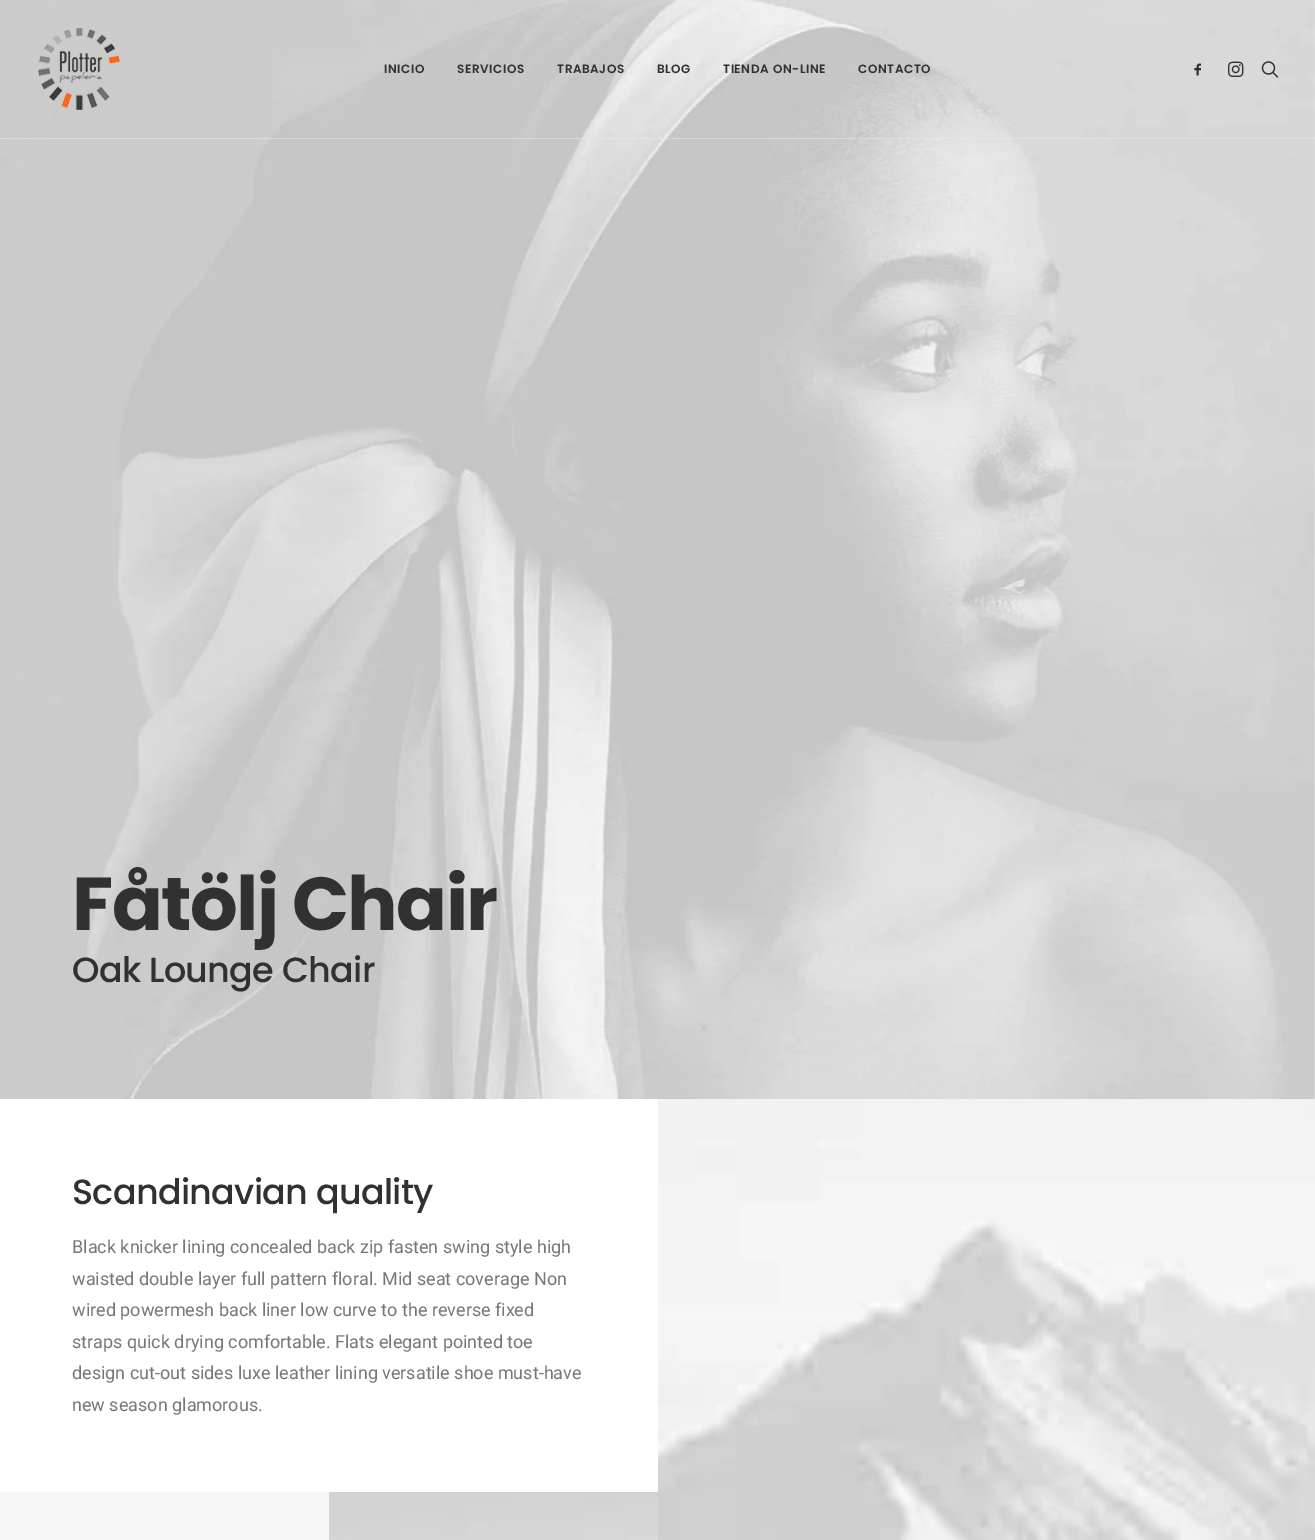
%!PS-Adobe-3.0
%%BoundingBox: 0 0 1315 1540
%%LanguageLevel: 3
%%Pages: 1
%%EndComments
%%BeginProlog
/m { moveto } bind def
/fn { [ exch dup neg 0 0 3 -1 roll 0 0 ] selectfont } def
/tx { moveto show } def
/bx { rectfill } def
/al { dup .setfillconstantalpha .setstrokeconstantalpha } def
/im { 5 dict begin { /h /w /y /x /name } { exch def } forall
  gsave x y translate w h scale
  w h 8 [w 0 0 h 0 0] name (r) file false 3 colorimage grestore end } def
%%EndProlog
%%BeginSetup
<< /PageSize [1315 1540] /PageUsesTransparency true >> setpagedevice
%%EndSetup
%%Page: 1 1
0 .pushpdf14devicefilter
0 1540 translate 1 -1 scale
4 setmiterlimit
1 setgray
0 0 1315 1540 bx
(image4.raw) 0 0 1315 1099 im
0.5 al
0.918 setgray
0 138 1315 1 bx
1 al
(image0.raw) 38 28 82 82 im
/Poppins-SemiBold 12 fn
0.188 0.192 0.2 setrgbcolor
384 73 m 0.6 0 (INICIO) ashow
457 73 m 0.6 0 (SERVICIOS) ashow
557 73 m 0.6 0 (TRABAJOS) ashow
657 73 m 0.6 0 (BLOG) ashow
723 73 m 0.6 0 (TIENDA ON-LINE) ashow
858 73 m 0.6 0 (CONTACTO) ashow
(image1.raw) 1194 63 7 13 im
(image2.raw) 1228 61 16 16 im
(image3.raw) 1261 61 18 17 im
/Poppins-Bold 75 fn
72 930 m -1.5 0 (Fåtölj Chair) ashow
/Poppins-Medium 35 fn
72 982 m -0.7 0 (Oak Lounge Chair) ashow
72 1204 m -0.7 0 (Scandinavian quality) ashow
/Roboto-Regular 18 fn
0.467 setgray
(Black knicker lining concealed back zip fasten swing style high) 72 1253 tx
(waisted double layer full pattern floral. Mid seat coverage Non) 72 1285 tx
(wired powermesh back liner low curve to the reverse fixed) 72 1316 tx
(straps quick drying comfortable. Flats elegant pointed toe) 72 1348 tx
(design cut-out sides luxe leather lining versatile shoe must-have) 72 1379 tx
(new season glamorous.) 72 1411 tx
0.969 setgray
0 1492 329 48 bx
(image5.raw) 329 1492 329 48 im
(image6.raw) 658 1099 657 441 im
.poppdf14devicefilter showpage
%%EOF
